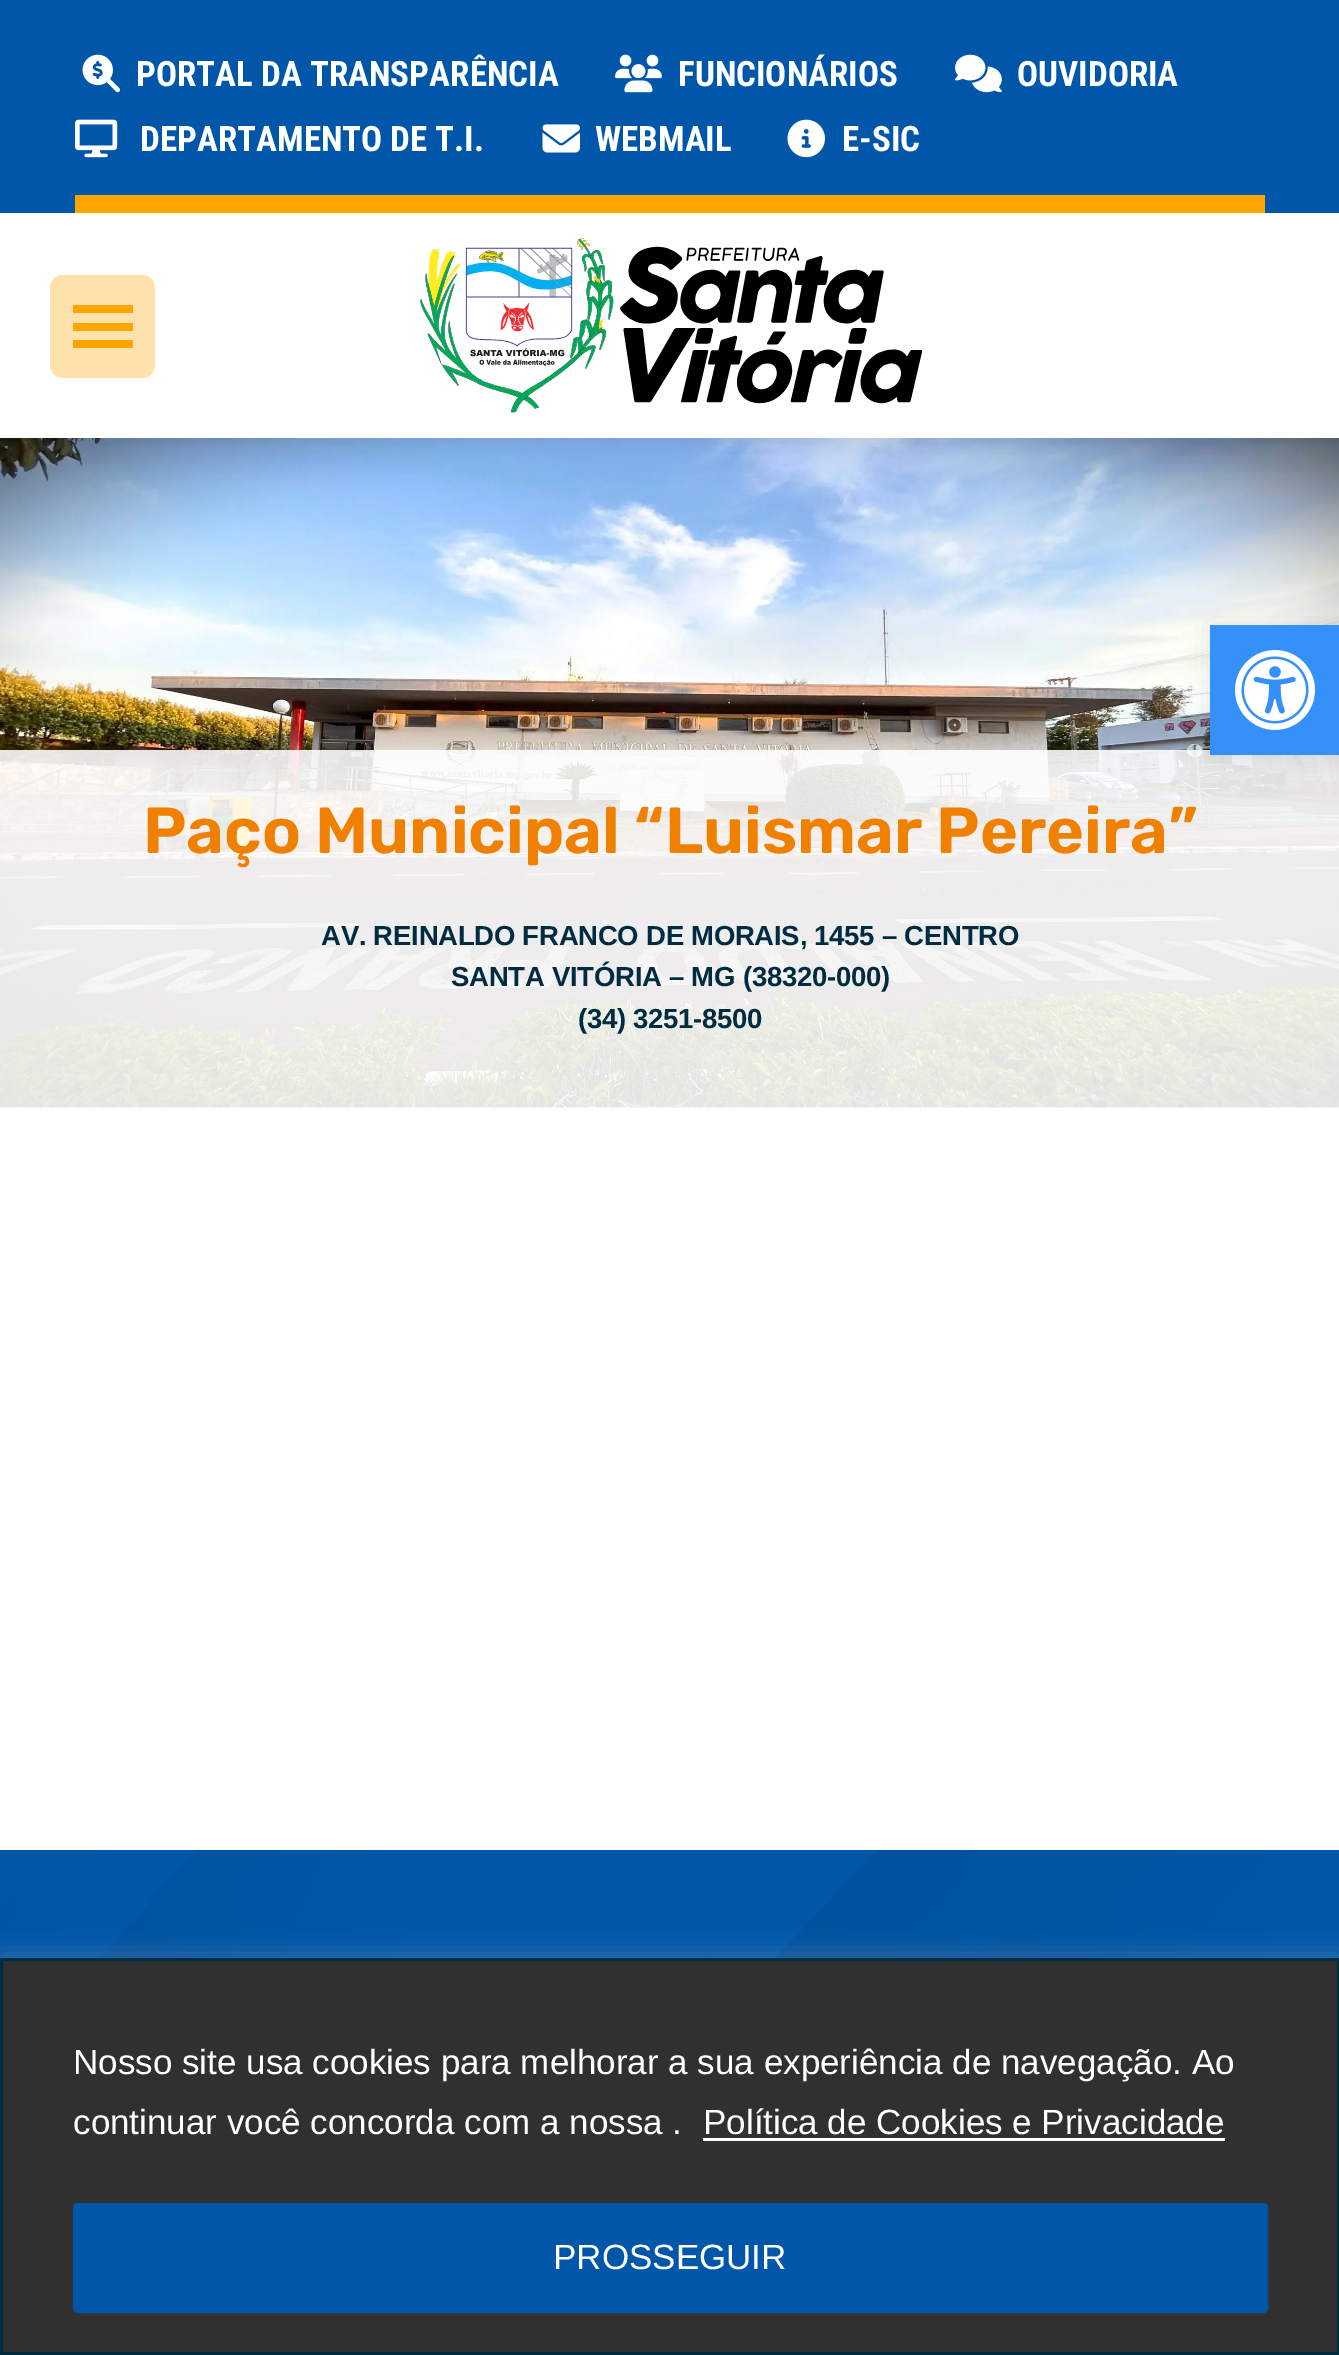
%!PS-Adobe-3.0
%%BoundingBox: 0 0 1339 2355
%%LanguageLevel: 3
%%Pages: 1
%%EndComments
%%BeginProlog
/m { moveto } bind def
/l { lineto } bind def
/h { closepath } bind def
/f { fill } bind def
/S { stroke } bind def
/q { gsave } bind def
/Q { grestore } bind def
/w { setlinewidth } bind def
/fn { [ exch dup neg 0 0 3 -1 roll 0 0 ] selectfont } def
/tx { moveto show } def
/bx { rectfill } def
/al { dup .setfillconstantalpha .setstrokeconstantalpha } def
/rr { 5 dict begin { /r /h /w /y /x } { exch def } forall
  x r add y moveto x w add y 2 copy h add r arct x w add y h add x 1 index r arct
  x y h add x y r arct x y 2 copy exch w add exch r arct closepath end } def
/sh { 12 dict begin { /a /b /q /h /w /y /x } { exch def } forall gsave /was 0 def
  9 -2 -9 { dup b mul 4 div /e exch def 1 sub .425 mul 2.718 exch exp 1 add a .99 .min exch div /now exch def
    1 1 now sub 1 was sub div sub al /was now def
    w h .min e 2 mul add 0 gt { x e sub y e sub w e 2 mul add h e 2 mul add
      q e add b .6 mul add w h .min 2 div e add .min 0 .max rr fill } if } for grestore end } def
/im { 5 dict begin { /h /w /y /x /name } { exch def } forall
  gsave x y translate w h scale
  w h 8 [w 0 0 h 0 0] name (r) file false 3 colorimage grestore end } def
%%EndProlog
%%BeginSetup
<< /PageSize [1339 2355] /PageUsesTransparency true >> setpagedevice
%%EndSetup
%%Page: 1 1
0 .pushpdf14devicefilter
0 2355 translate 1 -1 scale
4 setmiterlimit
1 setgray
0 0 1339 2355 bx
(image7.raw) 0 438 1339 670 im
0 setgray
-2 -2 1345 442 0 19 0.07 sh
1 setgray
0 213 1339 225 bx
0 0.341 0.667 setrgbcolor
0 0 1339 213 bx
(image0.raw) 82 54 38 39 im
/RobotoCondensed-Bold 35 fn
1 setgray
(PORTAL DA TRANSPARÊNCIA) 136 86 tx
(image1.raw) 615 54 47 39 im
(FUNCIONÁRIOS) 678 86 tx
(image2.raw) 955 54 47 39 im
(OUVIDORIA) 1017 86 tx
(image3.raw) 75 119 43 39 im
(DEPARTAMENTO DE T.I.) 140 151 tx
(image4.raw) 542 124 38 29 im
(WEBMAIL) 595 151 tx
(image5.raw) 787 119 38 39 im
(E-SIC) 842 151 tx
1 0.647 0 setrgbcolor
75 195 1190 18 bx
1 0.882 0.671 setrgbcolor
50 275 105 103 13 rr f
1 0.647 0 setrgbcolor
73 305 60 8 bx
73 323 60 8 bx
73 340 60 8 bx
(image6.raw) 420 238 502 175 im
0.88 al
1 setgray
0 750 1339 358 bx
/Rubik-SemiBold 65 fn
1 al
0.941 0.502 0 setrgbcolor
(Paço Municipal “Luismar Pereira”) 143 853 tx
/LiberationSans-Bold 27.5 fn
0 0.173 0.259 setrgbcolor
321 945 m -0.25 0 (AV. REINALDO FRANCO DE MORAIS, 1455 – CENTRO) ashow
451 986 m -0.25 0 (SANTA VITÓRIA – MG \(38320-000\)) ashow
578 1028 m -0.25 0 (\(34\) 3251-8500) ashow
0 0.341 0.667 setrgbcolor
0 1850 1339 108 bx
(image8.raw) 0 1850 1269 108 im
0 setgray
1210 625 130 130 0 12.5 0.1 sh
0.212 0.565 0.98 setrgbcolor
1210 625 129 130 bx
(image9.raw) 1235 650 80 80 im
0.675 0.671 0.671 setrgbcolor
0 1955 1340 398 0 12.5 0.3 sh
0.188 setgray
1.5 1959.5 m 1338.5 1959.5 l 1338.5 2353.5 l 1.5 2353.5 l h q f Q
0 0.173 0.259 setrgbcolor
3 w
S
/LiberationSans-Regular 35 fn
1 setgray
(Nosso site usa cookies para melhorar a sua experiência de navegação. Ao) 73 2074 tx
(continuar você concorda com a nossa .) 73 2134 tx
(Política de Cookies e Privacidade) 703 2134 tx
703 2138 522 3 bx
0 0.341 0.667 setrgbcolor
75.5 2205.5 1190 105 2.5 rr q f Q
5 w
S
1 setgray
(PROSSEGUIR) 553 2269 tx
.poppdf14devicefilter showpage
%%EOF
